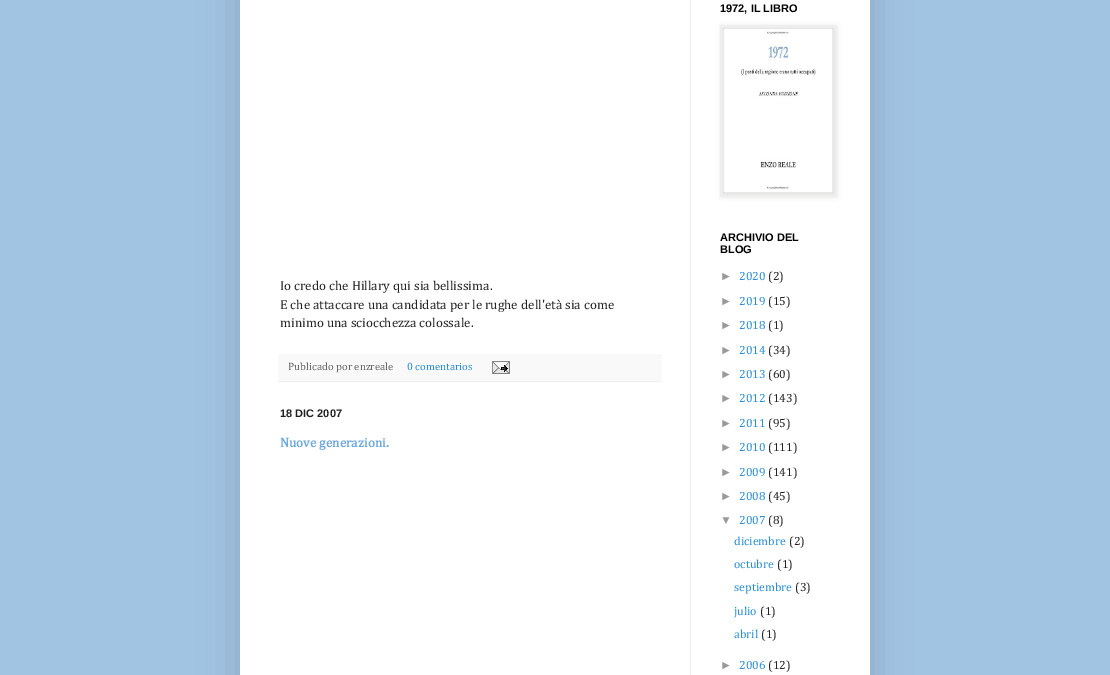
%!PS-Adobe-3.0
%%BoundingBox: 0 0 1110 675
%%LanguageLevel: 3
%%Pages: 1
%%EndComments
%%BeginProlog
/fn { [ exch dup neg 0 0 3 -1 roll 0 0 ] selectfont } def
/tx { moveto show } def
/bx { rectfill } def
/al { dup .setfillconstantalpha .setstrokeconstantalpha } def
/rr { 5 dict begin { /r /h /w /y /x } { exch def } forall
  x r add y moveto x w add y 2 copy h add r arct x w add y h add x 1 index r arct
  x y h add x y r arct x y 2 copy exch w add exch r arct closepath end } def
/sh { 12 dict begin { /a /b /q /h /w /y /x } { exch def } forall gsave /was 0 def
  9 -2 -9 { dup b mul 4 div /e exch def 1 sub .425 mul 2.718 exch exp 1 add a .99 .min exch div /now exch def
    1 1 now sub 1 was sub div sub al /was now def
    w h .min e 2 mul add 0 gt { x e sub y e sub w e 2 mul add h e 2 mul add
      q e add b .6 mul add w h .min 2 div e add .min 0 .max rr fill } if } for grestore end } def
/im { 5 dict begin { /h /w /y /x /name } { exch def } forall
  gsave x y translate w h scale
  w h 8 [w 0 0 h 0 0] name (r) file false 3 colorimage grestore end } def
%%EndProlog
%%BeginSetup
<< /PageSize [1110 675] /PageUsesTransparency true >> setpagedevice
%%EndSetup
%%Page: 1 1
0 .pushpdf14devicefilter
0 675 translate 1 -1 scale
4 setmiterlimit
0.635 0.769 0.89 setrgbcolor
0 0 1110 675 bx
0 setgray
240 -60 630 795 0 20 0.15 sh
1 setgray
240 0 630 675 bx
0.933 setgray
690 0 1 675 bx
/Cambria-Regular 13.2 fn
0.133 setgray
(Io credo che Hillary qui sia bellissima.) 280 290 tx
(E che attaccare una candidata per le rughe dell'età sia come) 280 309 tx
(minimo una sciocchezza colossale.) 280 327 tx
0.976 setgray
278 354 384 27 bx
0.933 setgray
278 381 384 1 bx
/Cambria-Regular 10.75 fn
0.4 setgray
(Publicado por enzreale) 288 370 tx
0.153 0.553 0.839 setrgbcolor
(0 comentarios) 407 370 tx
(image0.raw) 492 361 18 13 im
/LiberationSans-Bold 11 fn
0.133 setgray
(18 DIC 2007) 280 417 tx
/Cambria-Bold 13.2 fn
0.435 0.659 0.863 setrgbcolor
(Nuove generazioni.) 280 447 tx
/LiberationSans-Bold 11 fn
0 setgray
(1972, IL LIBRO) 720 12 tx
721 26 116 171 0 2.5 0.1 sh
0.933 setgray
720.5 25.5 115 170 rectstroke
(image1.raw) 723 28 110 165 im
0 setgray
(ARCHIVIO DEL) 720 241 tx
(BLOG) 720 253 tx
/LiberationSans-Regular 12 fn
0.6 setgray
(►) 720 280 tx
/Cambria-Regular 12 fn
0.153 0.553 0.839 setrgbcolor
(2020) 739 280 tx
0.133 setgray
(\(2\)) 768 280 tx
/LiberationSans-Regular 12 fn
0.6 setgray
(►) 720 305 tx
/Cambria-Regular 12 fn
0.153 0.553 0.839 setrgbcolor
(2019) 739 305 tx
0.133 setgray
(\(15\)) 768 305 tx
/LiberationSans-Regular 12 fn
0.6 setgray
(►) 720 329 tx
/Cambria-Regular 12 fn
0.153 0.553 0.839 setrgbcolor
(2018) 739 329 tx
0.133 setgray
(\(1\)) 768 329 tx
/LiberationSans-Regular 12 fn
0.6 setgray
(►) 720 354 tx
/Cambria-Regular 12 fn
0.153 0.553 0.839 setrgbcolor
(2014) 739 354 tx
0.133 setgray
(\(34\)) 768 354 tx
/LiberationSans-Regular 12 fn
0.6 setgray
(►) 720 378 tx
/Cambria-Regular 12 fn
0.153 0.553 0.839 setrgbcolor
(2013) 739 378 tx
0.133 setgray
(\(60\)) 768 378 tx
/LiberationSans-Regular 12 fn
0.6 setgray
(►) 720 402 tx
/Cambria-Regular 12 fn
0.153 0.553 0.839 setrgbcolor
(2012) 739 402 tx
0.133 setgray
(\(143\)) 768 402 tx
/LiberationSans-Regular 12 fn
0.6 setgray
(►) 720 427 tx
/Cambria-Regular 12 fn
0.153 0.553 0.839 setrgbcolor
(2011) 739 427 tx
0.133 setgray
(\(95\)) 768 427 tx
/LiberationSans-Regular 12 fn
0.6 setgray
(►) 720 451 tx
/Cambria-Regular 12 fn
0.153 0.553 0.839 setrgbcolor
(2010) 739 451 tx
0.133 setgray
(\(111\)) 768 451 tx
/LiberationSans-Regular 12 fn
0.6 setgray
(►) 720 476 tx
/Cambria-Regular 12 fn
0.153 0.553 0.839 setrgbcolor
(2009) 739 476 tx
0.133 setgray
(\(141\)) 768 476 tx
/LiberationSans-Regular 12 fn
0.6 setgray
(►) 720 500 tx
/Cambria-Regular 12 fn
0.153 0.553 0.839 setrgbcolor
(2008) 739 500 tx
0.133 setgray
(\(45\)) 768 500 tx
/LiberationSans-Regular 12 fn
0.6 setgray
(▼) 720 524 tx
/Cambria-Regular 12 fn
0.153 0.553 0.839 setrgbcolor
(2007) 739 524 tx
0.133 setgray
(\(8\)) 768 524 tx
0.153 0.553 0.839 setrgbcolor
(diciembre) 734 545 tx
0.133 setgray
(\(2\)) 789 545 tx
0.153 0.553 0.839 setrgbcolor
(octubre) 734 568 tx
0.133 setgray
(\(1\)) 777 568 tx
0.153 0.553 0.839 setrgbcolor
(septiembre) 734 591 tx
0.133 setgray
(\(3\)) 795 591 tx
0.153 0.553 0.839 setrgbcolor
(julio) 734 615 tx
0.133 setgray
(\(1\)) 760 615 tx
0.153 0.553 0.839 setrgbcolor
(abril) 734 638 tx
0.133 setgray
(\(1\)) 761 638 tx
/LiberationSans-Regular 12 fn
0.6 setgray
(►) 720 669 tx
/Cambria-Regular 12 fn
0.153 0.553 0.839 setrgbcolor
(2006) 739 669 tx
0.133 setgray
(\(12\)) 768 669 tx
.poppdf14devicefilter showpage
%%EOF
